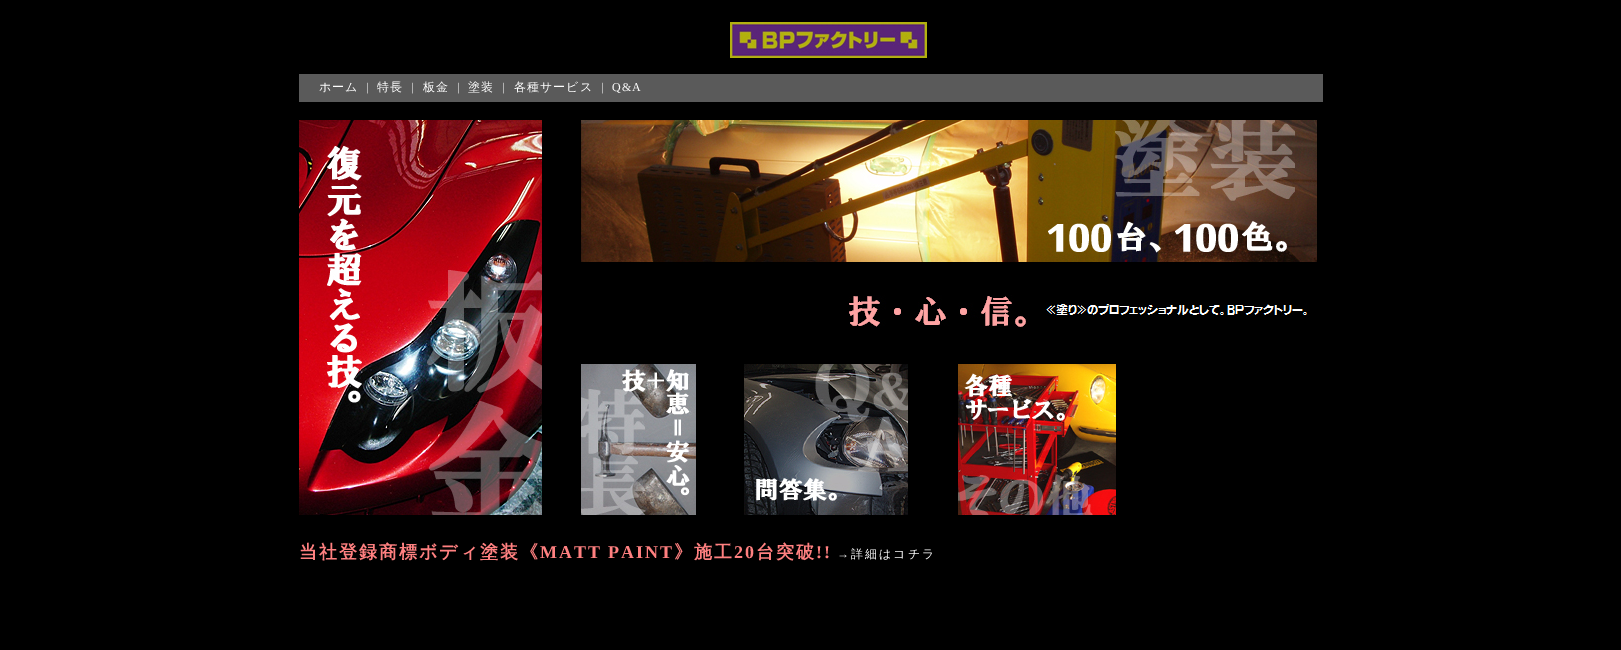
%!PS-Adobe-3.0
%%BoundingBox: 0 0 1621 650
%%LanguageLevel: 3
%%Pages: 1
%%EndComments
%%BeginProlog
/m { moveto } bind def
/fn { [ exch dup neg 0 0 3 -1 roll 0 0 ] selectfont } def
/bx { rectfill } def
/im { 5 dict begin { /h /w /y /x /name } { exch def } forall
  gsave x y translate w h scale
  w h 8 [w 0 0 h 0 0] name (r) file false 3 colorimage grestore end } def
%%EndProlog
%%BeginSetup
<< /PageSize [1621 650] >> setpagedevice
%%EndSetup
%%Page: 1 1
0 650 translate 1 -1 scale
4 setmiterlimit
0 setgray
0 0 1621 650 bx
(image0.raw) 730 22 197 36 im
0.353 setgray
299 74 1024 28 bx
/WenQuanYiZenHei-Medium 12 fn
1 setgray
319 91 m 1 0 (ホーム) ashow
/LiberationSerif-Regular 12 fn
366 91 m 1 0 (|) ashow
/WenQuanYiZenHei-Medium 12 fn
377 91 m 1 0 (特長) ashow
/LiberationSerif-Regular 12 fn
411 91 m 1 0 (|) ashow
/WenQuanYiZenHei-Medium 12 fn
423 91 m 1 0 (板金) ashow
/LiberationSerif-Regular 12 fn
457 91 m 1 0 (|) ashow
/WenQuanYiZenHei-Medium 12 fn
468 91 m 1 0 (塗装) ashow
/LiberationSerif-Regular 12 fn
502 91 m 1 0 (|) ashow
/WenQuanYiZenHei-Medium 12 fn
514 91 m 1 0 (各種サービス) ashow
/LiberationSerif-Regular 12 fn
601 91 m 1 0 (|) ashow
612 91 m 1 0 (Q&A) ashow
(image1.raw) 299 120 243 395 im
(image2.raw) 581 120 736 142 im
(image3.raw) 849 295 458 35 im
(image4.raw) 581 364 115 151 im
(image5.raw) 744 364 164 151 im
(image6.raw) 958 364 158 151 im
/WenQuanYiZenHei-Bold 18 fn
1 0.502 0.502 setrgbcolor
299 558 m 2 0 (当社登録商標ボディ塗装《) ashow
/LiberationSerif-Bold 18 fn
540 558 m 2 0 (MATT PAINT) ashow
/WenQuanYiZenHei-Bold 18 fn
674 558 m 2 0 (》施工) ashow
/LiberationSerif-Bold 18 fn
734 558 m 2 0 (20) ashow
/WenQuanYiZenHei-Bold 18 fn
756 558 m 2 0 (台突破) ashow
/LiberationSerif-Bold 18 fn
816 558 m 2 0 (!!) ashow
/LiberationSerif-Regular 12 fn
1 setgray
837 558 m 2 0 (→) ashow
/WenQuanYiZenHei-Medium 12 fn
851 558 m 2 0 (詳細はコチラ) ashow
showpage
%%EOF
